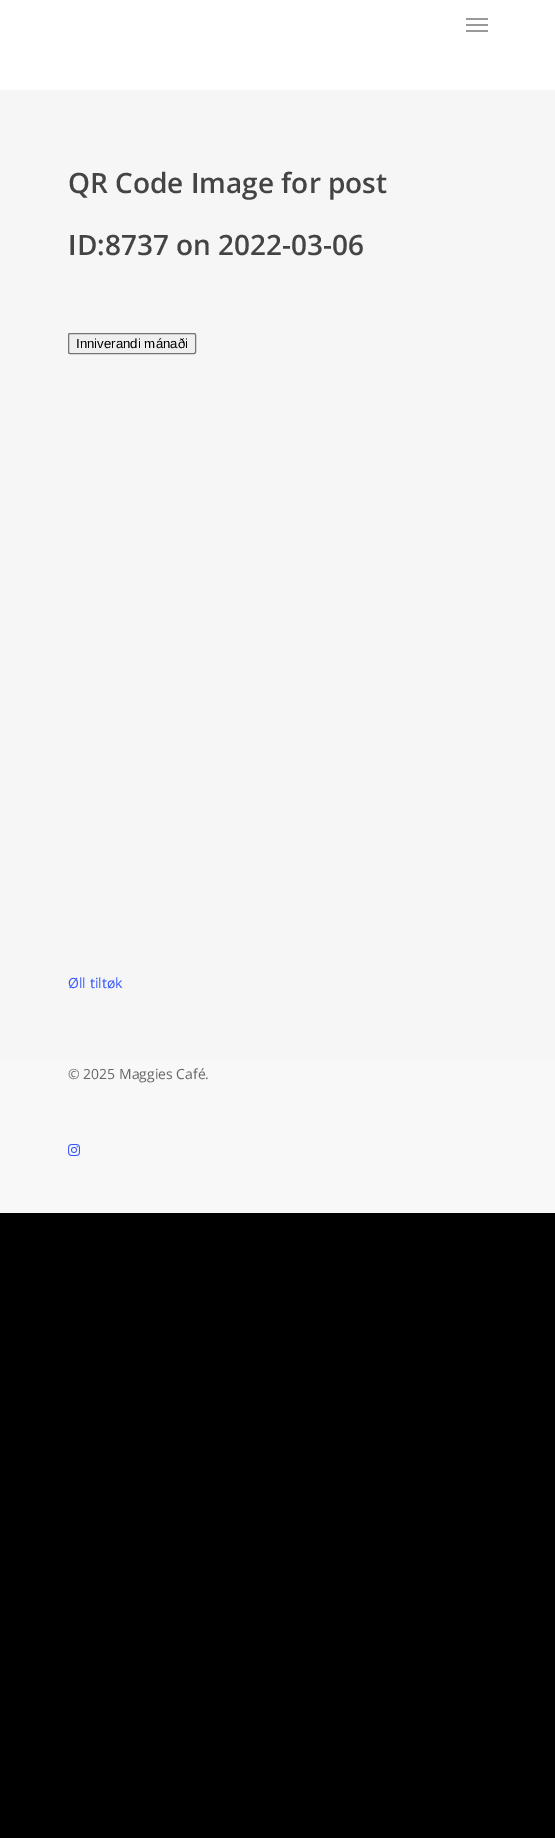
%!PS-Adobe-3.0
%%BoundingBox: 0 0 555 1838
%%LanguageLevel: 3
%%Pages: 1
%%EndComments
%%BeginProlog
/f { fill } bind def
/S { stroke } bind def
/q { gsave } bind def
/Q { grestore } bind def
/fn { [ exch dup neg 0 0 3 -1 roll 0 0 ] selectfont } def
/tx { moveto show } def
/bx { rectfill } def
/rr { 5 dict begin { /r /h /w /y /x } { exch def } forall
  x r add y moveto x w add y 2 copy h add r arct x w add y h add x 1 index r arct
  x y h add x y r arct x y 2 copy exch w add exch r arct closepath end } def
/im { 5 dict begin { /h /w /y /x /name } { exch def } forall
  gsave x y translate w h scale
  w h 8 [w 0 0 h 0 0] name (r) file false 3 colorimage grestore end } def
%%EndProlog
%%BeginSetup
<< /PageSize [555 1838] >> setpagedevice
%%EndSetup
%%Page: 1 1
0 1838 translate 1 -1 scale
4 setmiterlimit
0 setgray
0 0 555 1838 bx
0.973 setgray
0 1061 555 152 bx
1 setgray
0 0 555 90 bx
0.6 setgray
466 18 22 2 bx
466 30 22 2 bx
466 24 22 2 bx
0.965 setgray
0 90 555 971 bx
/OpenSans-SemiBold 28 fn
0.267 setgray
(QR Code Image for post) 68 193 tx
(ID:8737 on 2022-03-06) 68 255 tx
0.937 setgray
68.5 333.5 127 20 1.5 rr q f Q
0.463 setgray
S
/LiberationSans-Regular 13.25 fn
0 setgray
(Inniverandi mánaði) 76 348 tx
/OpenSans-Regular 14 fn
0.208 0.333 1 setrgbcolor
(Øll tiltøk) 68 988 tx
0.404 setgray
(© 2025 Maggies Café.) 68 1079 tx
(image0.raw) 68 1144 12 12 im
showpage
%%EOF
